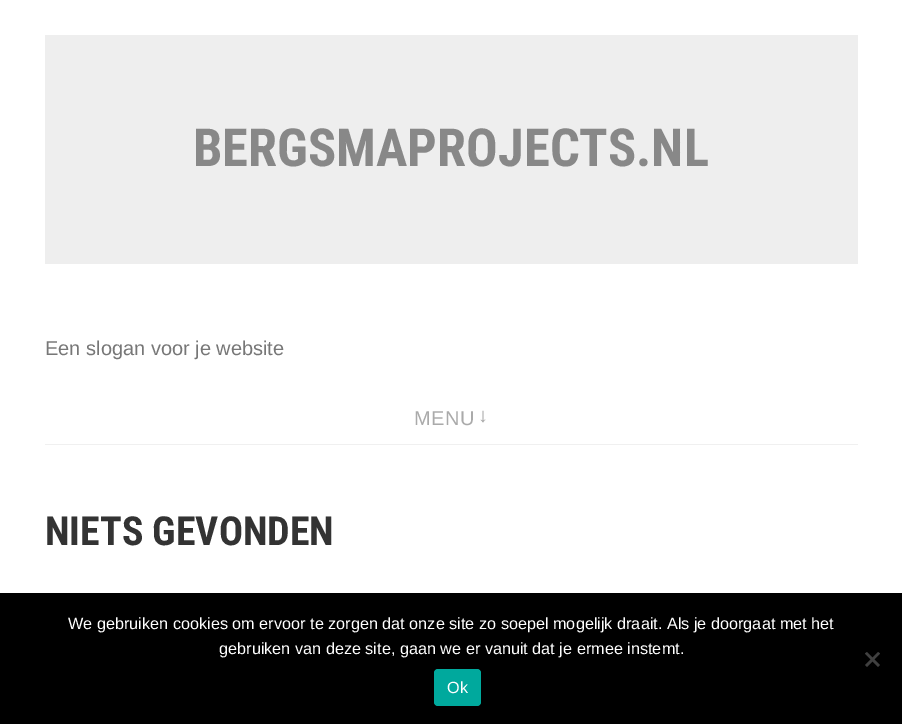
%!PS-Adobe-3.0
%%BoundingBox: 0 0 902 724
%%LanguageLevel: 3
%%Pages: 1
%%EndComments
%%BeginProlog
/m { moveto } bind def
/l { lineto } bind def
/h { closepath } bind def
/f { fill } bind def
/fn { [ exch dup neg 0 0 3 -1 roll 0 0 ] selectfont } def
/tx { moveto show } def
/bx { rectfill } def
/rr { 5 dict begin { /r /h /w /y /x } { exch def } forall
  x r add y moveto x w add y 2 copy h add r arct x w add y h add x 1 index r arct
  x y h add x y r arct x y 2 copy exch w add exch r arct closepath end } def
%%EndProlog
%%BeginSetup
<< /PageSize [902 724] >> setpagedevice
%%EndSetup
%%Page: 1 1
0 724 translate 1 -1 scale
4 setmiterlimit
1 setgray
0 0 902 724 bx
0.933 setgray
45 35 813 229 bx
/RobotoCondensed-Bold 52.5 fn
0.533 setgray
(BERGSMAPROJECTS.NL) 193 166 tx
/Arimo-Regular 20 fn
0.467 setgray
(Een slogan voor je website) 45 355 tx
0.941 setgray
45 444 813 1 bx
0.667 setgray
414 425 m 0.5 0 (MENU) ashow
478 422 m 0.5 0 (↓) ashow
/RobotoCondensed-Bold 40 fn
0.2 setgray
(NIETS GEVONDEN) 45 545 tx
0 setgray
0 593 902 131 bx
/LiberationSans-Regular 16.25 fn
1 setgray
(We gebruiken cookies om ervoor te zorgen dat onze site zo soepel mogelijk draait. Als je doorgaat met het) 68 629 tx
(gebruiken van deze site, gaan we er vanuit dat je ermee instemt.) 219 654 tx
0.251 setgray
878 652 m 880 653.5 l 867 667 l 865 665 l h f
865 653.5 m 867 652 l 880 665 l 878 667 l h f
0 0.663 0.616 setrgbcolor
434 669 47 37 4 rr f
1 setgray
(Ok) 447 693 tx
showpage
%%EOF
